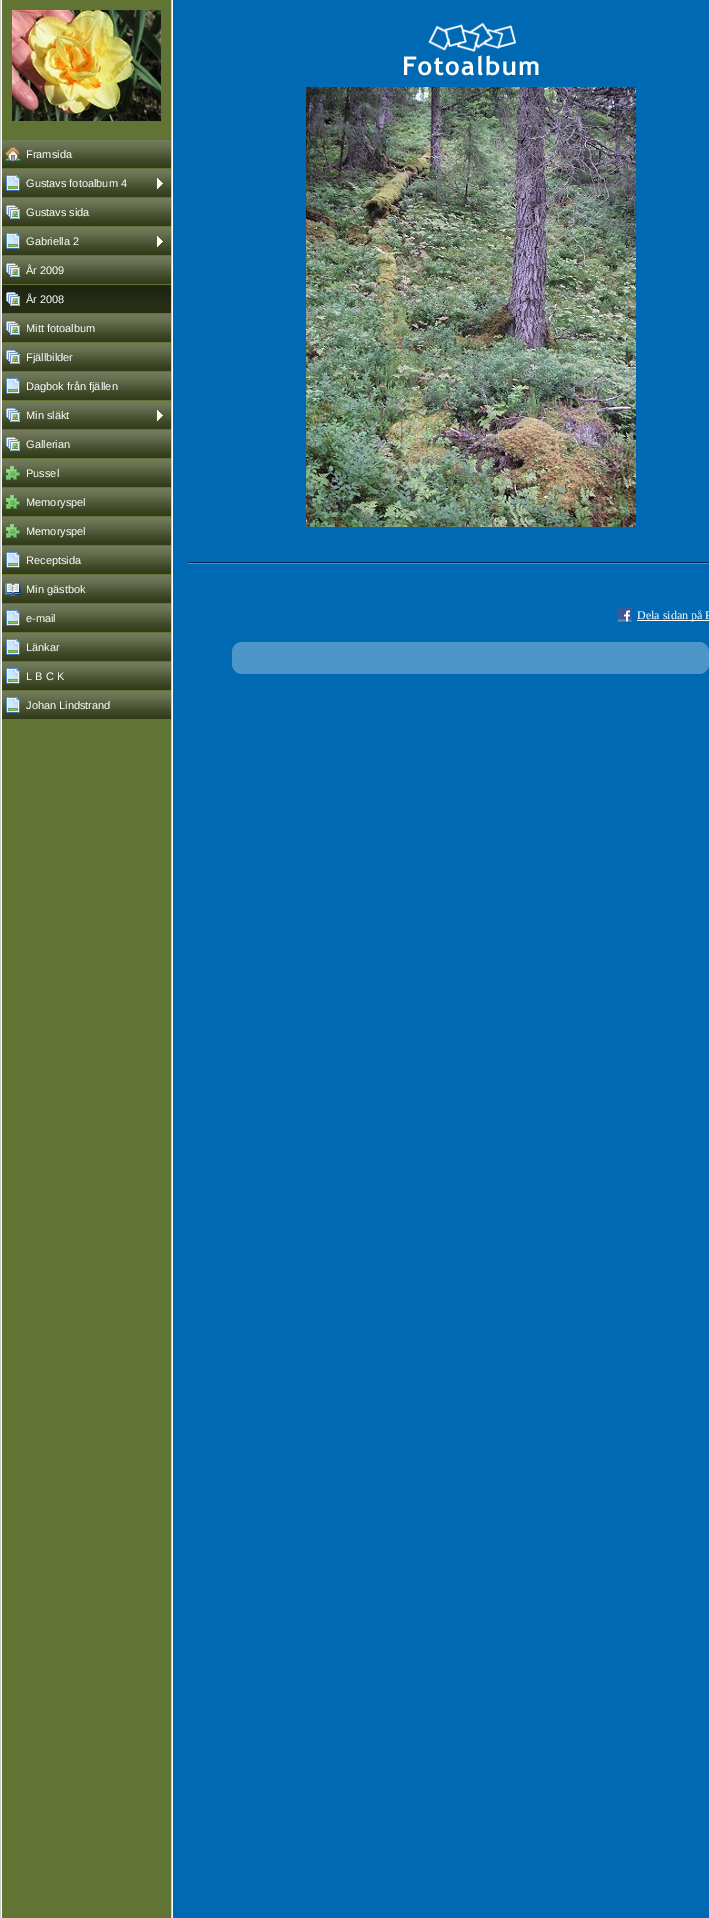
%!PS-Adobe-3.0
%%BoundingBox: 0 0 709 1918
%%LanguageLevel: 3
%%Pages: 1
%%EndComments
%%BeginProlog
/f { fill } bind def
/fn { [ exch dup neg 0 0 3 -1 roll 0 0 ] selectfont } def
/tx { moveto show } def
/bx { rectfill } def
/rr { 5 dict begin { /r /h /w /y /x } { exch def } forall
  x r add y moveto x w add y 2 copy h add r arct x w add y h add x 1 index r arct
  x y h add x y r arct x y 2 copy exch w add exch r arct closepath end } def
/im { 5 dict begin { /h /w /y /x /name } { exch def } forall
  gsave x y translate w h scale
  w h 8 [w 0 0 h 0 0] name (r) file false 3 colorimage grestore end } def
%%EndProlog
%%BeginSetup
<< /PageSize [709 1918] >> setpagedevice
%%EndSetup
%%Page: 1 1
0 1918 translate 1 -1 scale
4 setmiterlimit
1 setgray
0 0 709 1918 bx
0.8 setgray
0 0 1 1918 bx
0.38 0.455 0.2 setrgbcolor
2 0 169 1918 bx
(image0.raw) 12 10 149 111 im
(image1.raw) 2 140 169 28 im
(image2.raw) 5 147 16 14 im
/LiberationSans-Regular 11 fn
1 setgray
(Framsida) 26 158 tx
(image1.raw) 2 169 169 28 im
(image3.raw) 6 175 14 16 im
(image4.raw) 157 178 6 11 im
(Gustavs fotoalbum 4) 26 187 tx
(image1.raw) 2 198 169 28 im
(image5.raw) 6 205 14 14 im
(Gustavs sida) 26 216 tx
(image1.raw) 2 227 169 28 im
(image3.raw) 6 233 14 16 im
(image4.raw) 157 236 6 11 im
(Gabriella 2) 26 245 tx
(image1.raw) 2 256 169 28 im
(image5.raw) 6 263 14 14 im
(År 2009) 26 274 tx
(image6.raw) 2 285 169 28 im
(image7.raw) 6 292 14 14 im
(År 2008) 26 303 tx
(image1.raw) 2 314 169 28 im
(image5.raw) 6 321 14 14 im
(Mitt fotoalbum) 26 332 tx
(image1.raw) 2 343 169 28 im
(image5.raw) 6 350 14 14 im
(Fjällbilder) 26 361 tx
(image1.raw) 2 372 169 28 im
(image3.raw) 6 378 14 16 im
(Dagbok från fjällen) 26 390 tx
(image1.raw) 2 401 169 28 im
(image5.raw) 6 408 14 14 im
(image4.raw) 157 410 6 11 im
(Min släkt) 26 419 tx
(image1.raw) 2 430 169 28 im
(image5.raw) 6 437 14 14 im
(Gallerian) 26 448 tx
(image1.raw) 2 459 169 28 im
(image8.raw) 6 466 14 14 im
(Pussel) 26 477 tx
(image1.raw) 2 488 169 28 im
(image8.raw) 6 495 14 14 im
(Memoryspel) 26 506 tx
(image1.raw) 2 517 169 28 im
(image8.raw) 6 524 14 14 im
(Memoryspel) 26 535 tx
(image1.raw) 2 546 169 28 im
(image3.raw) 6 552 14 16 im
(Receptsida) 26 564 tx
(image1.raw) 2 575 169 28 im
(image9.raw) 5 583 16 13 im
(Min gästbok) 26 593 tx
(image1.raw) 2 604 169 28 im
(image3.raw) 6 610 14 16 im
(e-mail) 26 622 tx
(image1.raw) 2 633 169 28 im
(image3.raw) 6 639 14 16 im
(Länkar) 26 651 tx
(image1.raw) 2 662 169 28 im
(image3.raw) 6 668 14 16 im
(L B C K) 26 680 tx
(image1.raw) 2 691 169 28 im
(image3.raw) 6 697 14 16 im
(Johan Lindstrand) 26 709 tx
0.8 setgray
171 0 1 1918 bx
0 0.412 0.702 setrgbcolor
173 0 536 1918 bx
(image10.raw) 404 22 135 54 im
(image11.raw) 306 87 330 440 im
0.031 0.133 0.333 setrgbcolor
188 562 521 1 bx
0.424 0.525 0.722 setrgbcolor
188 563 521 1 bx
(image12.raw) 617 608 15 14 im
1 setgray
637 620 72 1 bx
/LiberationSerif-Regular 12 fn
(Dela sidan på F) 637 619 tx
0.302 0.588 0.792 setrgbcolor
232 642 477 32 10 rr f
showpage
%%EOF
